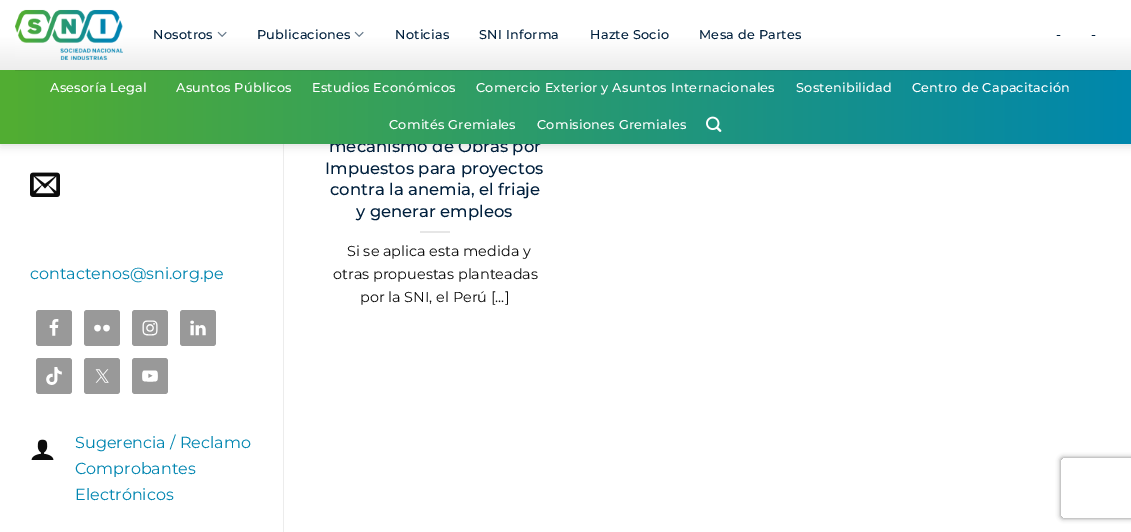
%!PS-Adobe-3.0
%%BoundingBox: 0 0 1131 532
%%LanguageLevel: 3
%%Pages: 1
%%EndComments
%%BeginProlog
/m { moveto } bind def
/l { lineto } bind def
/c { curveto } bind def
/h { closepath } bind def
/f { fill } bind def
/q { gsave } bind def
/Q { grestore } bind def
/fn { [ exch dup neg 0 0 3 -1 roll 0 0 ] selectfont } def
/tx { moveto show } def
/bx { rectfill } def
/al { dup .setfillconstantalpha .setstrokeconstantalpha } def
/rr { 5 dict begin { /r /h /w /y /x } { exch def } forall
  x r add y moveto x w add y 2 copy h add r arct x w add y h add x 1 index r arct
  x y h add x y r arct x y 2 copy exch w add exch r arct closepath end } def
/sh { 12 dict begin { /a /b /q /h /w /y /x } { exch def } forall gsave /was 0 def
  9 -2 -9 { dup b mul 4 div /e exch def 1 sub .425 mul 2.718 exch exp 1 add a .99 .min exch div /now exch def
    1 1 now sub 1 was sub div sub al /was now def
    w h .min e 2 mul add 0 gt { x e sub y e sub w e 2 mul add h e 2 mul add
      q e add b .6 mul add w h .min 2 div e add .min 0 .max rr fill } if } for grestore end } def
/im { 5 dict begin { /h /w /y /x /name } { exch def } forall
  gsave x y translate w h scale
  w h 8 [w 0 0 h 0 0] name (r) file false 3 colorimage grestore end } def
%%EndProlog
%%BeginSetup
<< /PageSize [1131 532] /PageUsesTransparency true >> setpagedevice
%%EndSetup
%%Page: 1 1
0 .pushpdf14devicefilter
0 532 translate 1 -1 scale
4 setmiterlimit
1 setgray
0 0 1131 532 bx
0.925 setgray
283 144 1 388 bx
0 setgray
1 1 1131 144 0 5 0.15 sh
q 0 0 m 1131 0 l 1131 70 l 0 70 l h clip newpath
<< /ShadingType 2 /ColorSpace /DeviceRGB /Coords [566 0 566 70] /Extend [true true] /Function << /FunctionType 3 /Domain [0 1] /Functions [<< /FunctionType 2 /Domain [0 1] /C0 [1 1 1] /C1 [1 1 1] /N 1 >> << /FunctionType 2 /Domain [0 1] /C0 [1 1 1] /C1 [0.929 0.929 0.929] /N 1 >> << /FunctionType 2 /Domain [0 1] /C0 [0.929 0.929 0.929] /C1 [0.929 0.929 0.929] /N 1 >>] /Bounds [0.52 0.99] /Encode [0 1 0 1 0 1] >> >> shfill Q
(image0.raw) 15 9 108 51 im
/Montserrat-Medium 12.8 fn
0 0.122 0.235 setrgbcolor
153 39 m 0.25 0 (Nosotros) ashow
(image1.raw) 217 31 10 6 im
257 39 m 0.25 0 (Publicaciones) ashow
(image1.raw) 354 31 10 6 im
395 39 m 0.25 0 (Noticias) ashow
479 39 m 0.25 0 (SNI Informa) ashow
590 39 m 0.25 0 (Hazte Socio) ashow
699 39 m 0.25 0 (Mesa de Partes) ashow
1056 39 m 0.25 0 (-) ashow
1091 39 m 0.25 0 (-) ashow
/Montserrat-Medium 16.5 fn
(mecanismo de Obras por) 329 152 tx
q 0 70 m 1131 70 l 1131 144 l 0 144 l h clip newpath
<< /ShadingType 2 /ColorSpace /DeviceRGB /Coords [0 107 1131 107] /Extend [true true] /Function << /FunctionType 3 /Domain [0 1] /Functions [<< /FunctionType 2 /Domain [0 1] /C0 [0.318 0.678 0.196] /C1 [0.318 0.678 0.196] /N 1 >> << /FunctionType 2 /Domain [0 1] /C0 [0.318 0.678 0.196] /C1 [0 0.529 0.678] /N 1 >>] /Bounds [0.01] /Encode [0 1 0 1] >> >> shfill Q
0.1 al
0.047 setgray
15 70 1101 1 bx
/Montserrat-Medium 12.8 fn
1 al
1 setgray
50 92 m 0.25 0 (Asesoría Legal) ashow
176 92 m 0.25 0 (Asuntos Públicos) ashow
312 92 m 0.25 0 (Estudios Económicos) ashow
476 92 m 0.25 0 (Comercio Exterior y Asuntos Internacionales) ashow
796 92 m 0.25 0 (Sostenibilidad) ashow
912 92 m 0.25 0 (Centro de Capacitación) ashow
389 129 m 0.25 0 (Comités Gremiales) ashow
537 129 m 0.25 0 (Comisiones Gremiales) ashow
(image2.raw) 706 116 16 16 im
/Montserrat-Medium 16.5 fn
0 0.122 0.235 setrgbcolor
(Impuestos para proyectos) 325 174 tx
(contra la anemia, el friaje) 330 195 tx
(y generar empleos) 356 217 tx
0.902 setgray
420 231 30 2 bx
/Montserrat-Regular 14.4 fn
0.047 setgray
(Si se aplica esta medida y) 347 256 tx
(otras propuestas planteadas) 333 279 tx
(por la SNI, el Perú [...]) 360 302 tx
(image3.raw) 30 172 30 25 im
/Montserrat-Regular 16 fn
0 0.522 0.69 setrgbcolor
(contactenos@sni.org.pe) 30 279 tx
0.6 setgray
36 310 36 36 3 rr f
(image4.raw) 49 319 10 17 im
84 310 36 36 3 rr f
(image5.raw) 94 324 16 8 im
132 310 36 36 3 rr f
(image6.raw) 142 320 16 16 im
180 310 36 36 3 rr f
(image7.raw) 190 320 16 16 im
36 358 36 36 3 rr f
(image8.raw) 46 367 16 18 im
84 358 36 36 3 rr f
(image9.raw) 95 369 14 14 im
132 358 36 36 3 rr f
(image10.raw) 142 370 16 12 im
(image11.raw) 31 439 23 21 im
0 0.522 0.69 setrgbcolor
(Sugerencia / Reclamo) 75 448 tx
(Comprobantes) 75 474 tx
(Electrónicos) 75 500 tx
q
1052 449 m 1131 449 l 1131 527 l 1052 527 l h 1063 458 m 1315 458 l 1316 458 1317 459 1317 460 c 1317 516 l 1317 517 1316 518 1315 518 c 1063 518 l 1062 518 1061 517 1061 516 c 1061 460 l 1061 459 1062 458 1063 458 c h eoclip newpath
0.502 setgray
1061 458 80 60 2 2.5 1 sh
Q
.poppdf14devicefilter showpage
%%EOF
